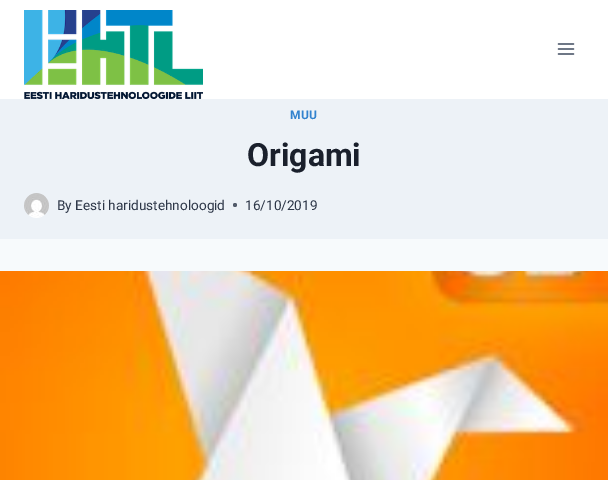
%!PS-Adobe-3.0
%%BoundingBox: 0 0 608 480
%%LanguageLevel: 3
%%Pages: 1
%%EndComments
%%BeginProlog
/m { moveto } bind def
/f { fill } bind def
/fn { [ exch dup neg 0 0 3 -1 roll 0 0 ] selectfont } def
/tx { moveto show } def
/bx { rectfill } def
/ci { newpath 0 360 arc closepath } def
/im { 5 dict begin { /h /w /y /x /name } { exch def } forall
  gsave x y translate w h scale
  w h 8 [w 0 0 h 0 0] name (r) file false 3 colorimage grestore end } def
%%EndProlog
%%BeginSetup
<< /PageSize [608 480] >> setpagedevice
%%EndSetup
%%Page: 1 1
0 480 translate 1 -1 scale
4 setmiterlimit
0.969 0.98 0.988 setrgbcolor
0 0 608 480 bx
1 setgray
0 0 608 99 bx
(image0.raw) 24 10 179 89 im
(image1.raw) 557 43 18 12 im
0.929 0.949 0.969 setrgbcolor
0 99 608 140 bx
/Roboto-Bold 12 fn
0.192 0.51 0.808 setrgbcolor
290 119 m 0.5 0 (MUU) ashow
/Roboto-Bold 32 fn
0.102 0.125 0.173 setrgbcolor
(Origami) 247 166 tx
(image2.raw) 24 193 25 25 im
/Roboto-Regular 13.6 fn
0.176 0.216 0.282 setrgbcolor
(By Eesti haridustehnoloogid) 57 210 tx
0.325 0.361 0.42 setrgbcolor
235 205 2 ci f
0.176 0.216 0.282 setrgbcolor
(16/10/2019) 245 210 tx
(image3.raw) 0 271 608 209 im
showpage
%%EOF
